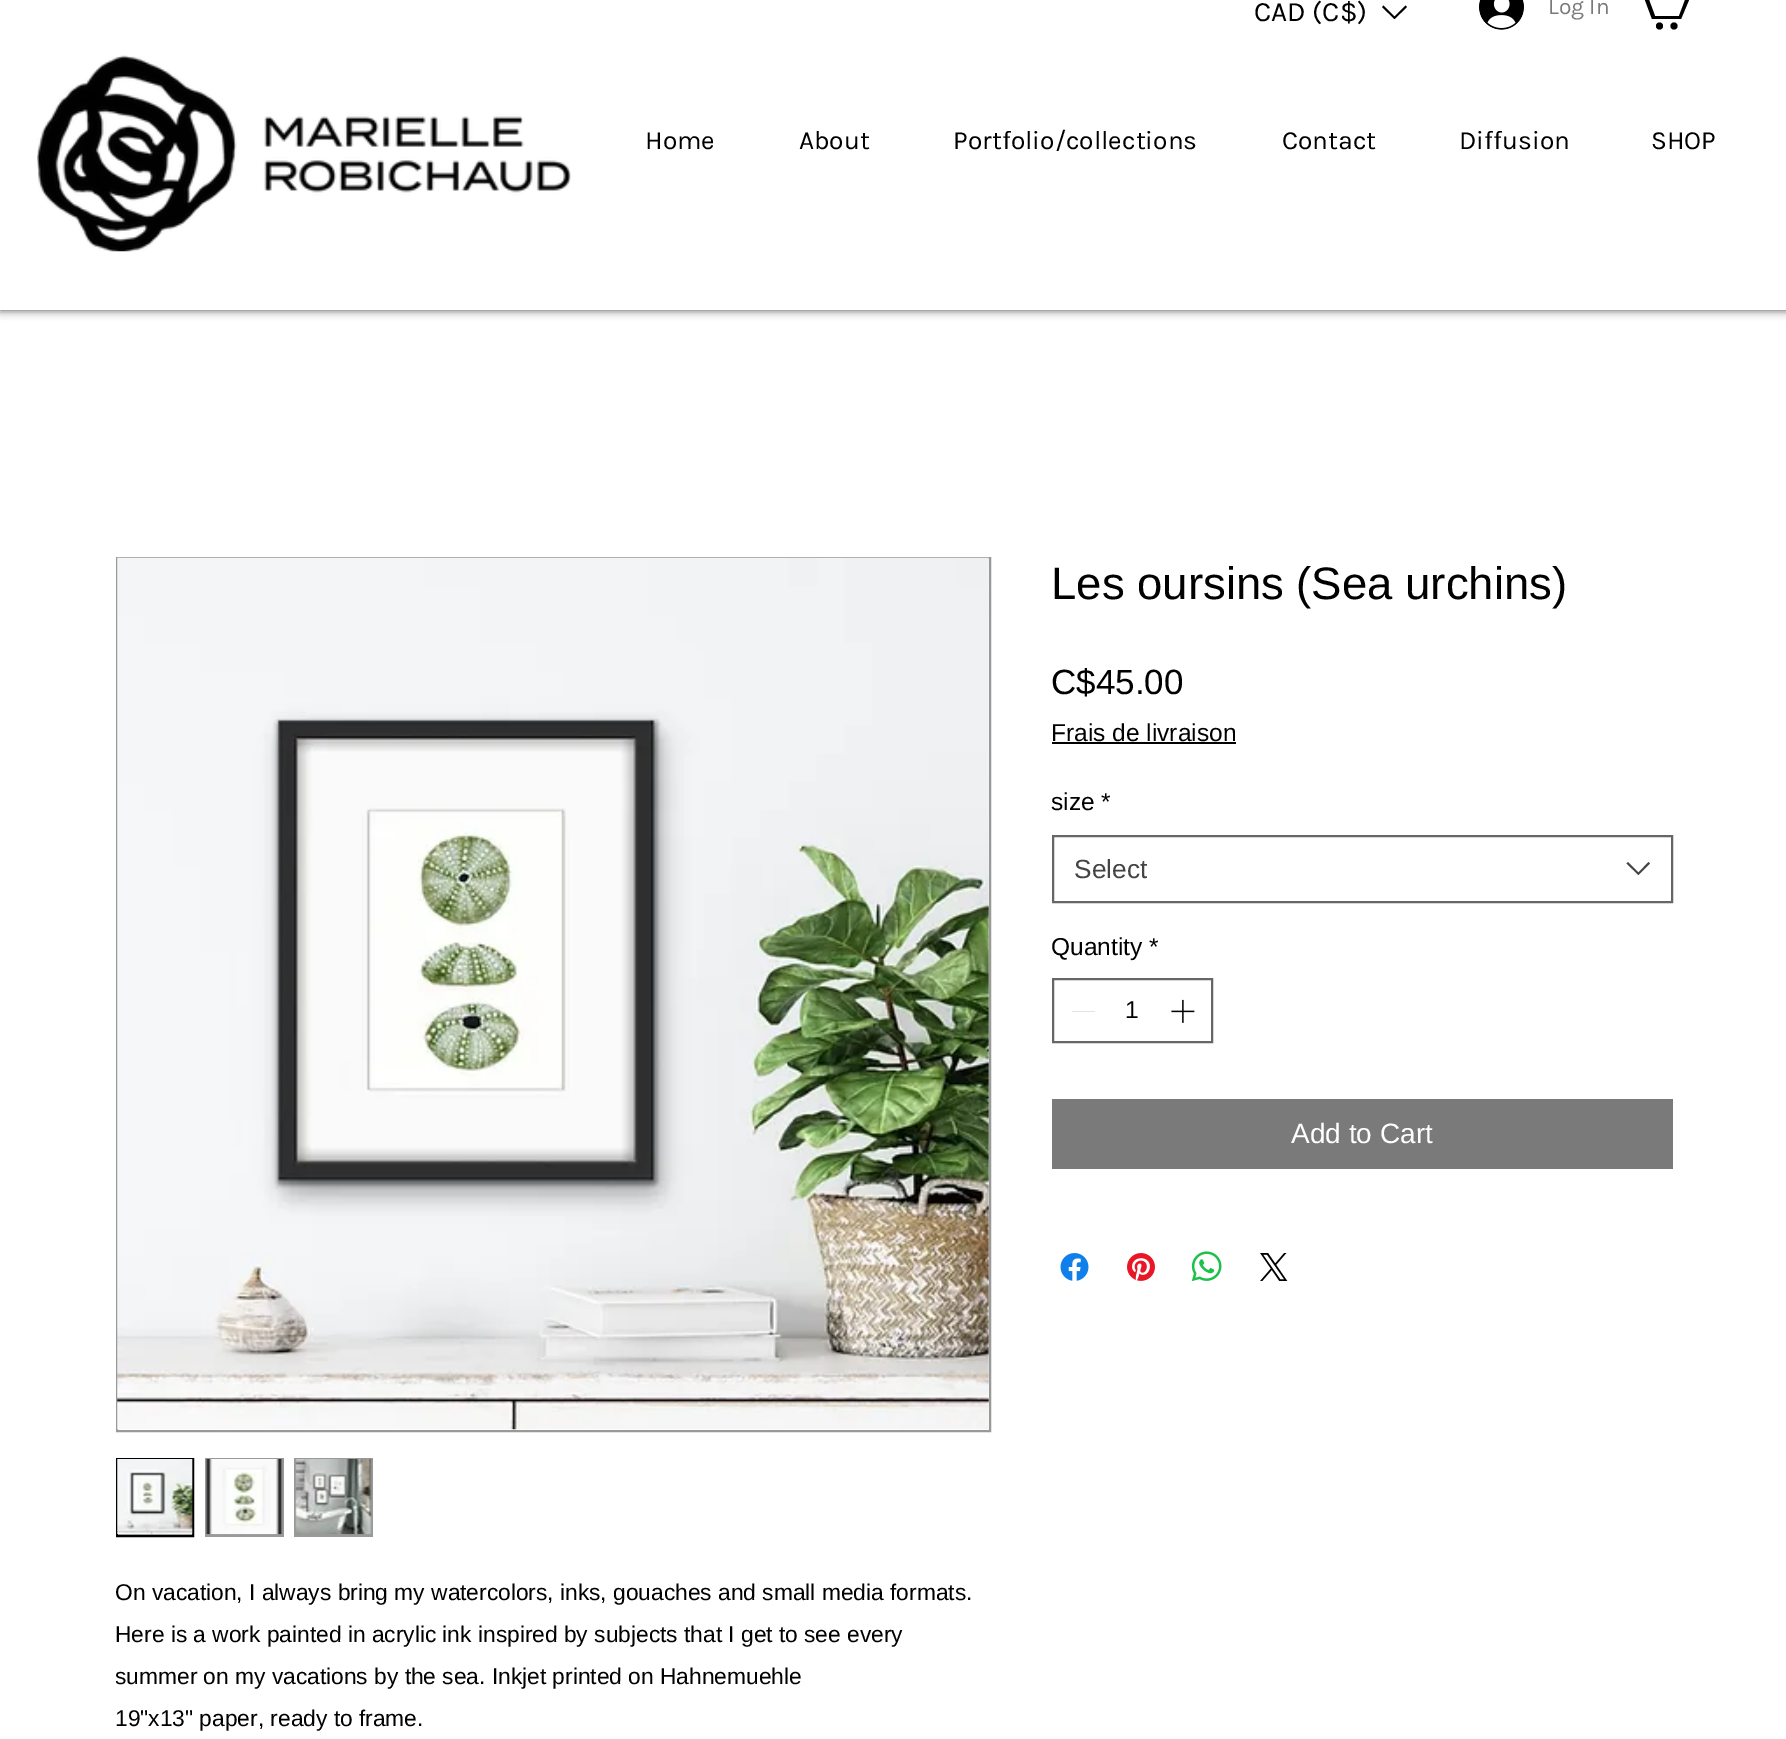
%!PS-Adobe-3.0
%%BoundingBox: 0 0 1786 1739
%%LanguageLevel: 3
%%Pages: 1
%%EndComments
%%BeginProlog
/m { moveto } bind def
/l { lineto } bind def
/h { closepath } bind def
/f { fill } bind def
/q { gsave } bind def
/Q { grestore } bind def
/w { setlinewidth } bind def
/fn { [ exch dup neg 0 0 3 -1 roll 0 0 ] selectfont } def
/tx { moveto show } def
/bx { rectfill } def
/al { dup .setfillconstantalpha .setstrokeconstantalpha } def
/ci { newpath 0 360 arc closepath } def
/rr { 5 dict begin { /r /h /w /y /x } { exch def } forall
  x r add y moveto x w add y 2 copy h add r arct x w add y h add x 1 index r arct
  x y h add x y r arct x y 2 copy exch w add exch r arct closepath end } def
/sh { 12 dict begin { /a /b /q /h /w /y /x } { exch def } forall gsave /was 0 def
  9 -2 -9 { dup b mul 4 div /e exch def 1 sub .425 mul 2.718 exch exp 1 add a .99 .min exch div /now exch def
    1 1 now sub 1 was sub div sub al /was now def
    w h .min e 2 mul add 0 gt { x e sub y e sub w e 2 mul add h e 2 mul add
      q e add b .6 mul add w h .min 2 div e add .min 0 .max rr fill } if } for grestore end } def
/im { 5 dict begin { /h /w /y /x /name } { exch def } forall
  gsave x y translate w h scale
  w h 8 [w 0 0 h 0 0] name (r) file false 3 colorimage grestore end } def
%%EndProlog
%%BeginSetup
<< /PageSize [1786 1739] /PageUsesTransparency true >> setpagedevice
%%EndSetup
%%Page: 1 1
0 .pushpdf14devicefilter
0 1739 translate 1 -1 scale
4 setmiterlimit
1 setgray
0 0 1786 1739 bx
0 setgray
0 -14 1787 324 0 4.5 0.7 sh
1 setgray
0 0 1786 310 bx
/Karla-Regular 28 fn
0 setgray
(CAD \(C$\)) 1254 21 tx
1405.5 5.5 m 1407 7 l 1394.5 19 l 1382 7 l 1383.5 5.5 l 1394.5 16.5 l h eofill
(image0.raw) 1479 0 45 30 im
/Karla-Regular 22.75 fn
0.478 setgray
(Log In) 1548 14 tx
0 setgray
1689 0 m 1681 19 l 1652 19 l 1642 -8 l 1634 -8 l 1635 -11 l 1645 -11 l 1655 16 l 1679 16 l 1685 0 l f
1674 26 3.5 ci f
1659.5 26 3.5 ci f
(image1.raw) 37 55 534 197 im
/Karla-Regular 26.25 fn
(Home) 645 149 tx
(About) 799 149 tx
(Portfolio/collections) 953 149 tx
(Contact) 1282 149 tx
(Diffusion) 1459 149 tx
(SHOP) 1651 149 tx
/LiberationSans-Regular 45.5 fn
(Les oursins \(Sea urchins\)) 1051 599 tx
/LiberationSans-Regular 35 fn
(C$45.00) 1051 694 tx
/LiberationSans-Regular 24.5 fn
(Frais de livraison) 1051 741 tx
1052 742 184 2 bx
(size *) 1051 810 tx
0.4 setgray
2 w
1053 836 619 66 rectstroke
/LiberationSans-Regular 26.25 fn
0.267 setgray
(Select) 1074 878 tx
1648.5 862 m 1650 863.5 l 1638.5 875 l 1626.5 863.5 l 1628 862 l 1638.5 872.5 l h eofill
/LiberationSans-Regular 24.5 fn
0 setgray
(Quantity *) 1051 955 tx
0.4 setgray
1053 979 159 63 rectstroke
0.89 setgray
1072 1011 23 1 bx
0 setgray
(1) 1125 1018 tx
(image2.raw) 1171 999 24 24 im
0.478 setgray
1052 1099 621 70 bx
/LiberationSans-Regular 28 fn
1 setgray
(Add to Cart) 1291 1143 tx
(image3.raw) 1060 1253 29 28 im
(image4.raw) 1127 1253 28 28 im
(image5.raw) 1191 1251 31 31 im
(image6.raw) 1260 1253 28 28 im
0.6 setgray
117 558 873 873 rectstroke
(image7.raw) 117 557 872 873 im
118 1534 74 1 bx
0 setgray
117 1459 76 77 rectstroke
(image8.raw) 117 1459 76 76 im
0.6 setgray
205 1458 79 79 bx
(image9.raw) 206 1459 77 76 im
294 1458 79 79 bx
(image10.raw) 295 1459 77 76 im
q
116 1572 875 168 rectclip
/LiberationSans-Regular 22.75 fn
0 setgray
(On vacation, I always bring my watercolors, inks, gouaches and small media formats.) 115 1600 tx
Q
/LiberationSans-Regular 22.75 fn
0 setgray
(Here is a work painted in acrylic ink inspired by subjects that I get to see every) 115 1642 tx
q
116 1572 875 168 rectclip
(summer on my vacations by the sea. Inkjet printed on Hahnemuehle) 115 1684 tx
Q
(19"x13" paper, ready to frame.) 115 1726 tx
.poppdf14devicefilter showpage
%%EOF
